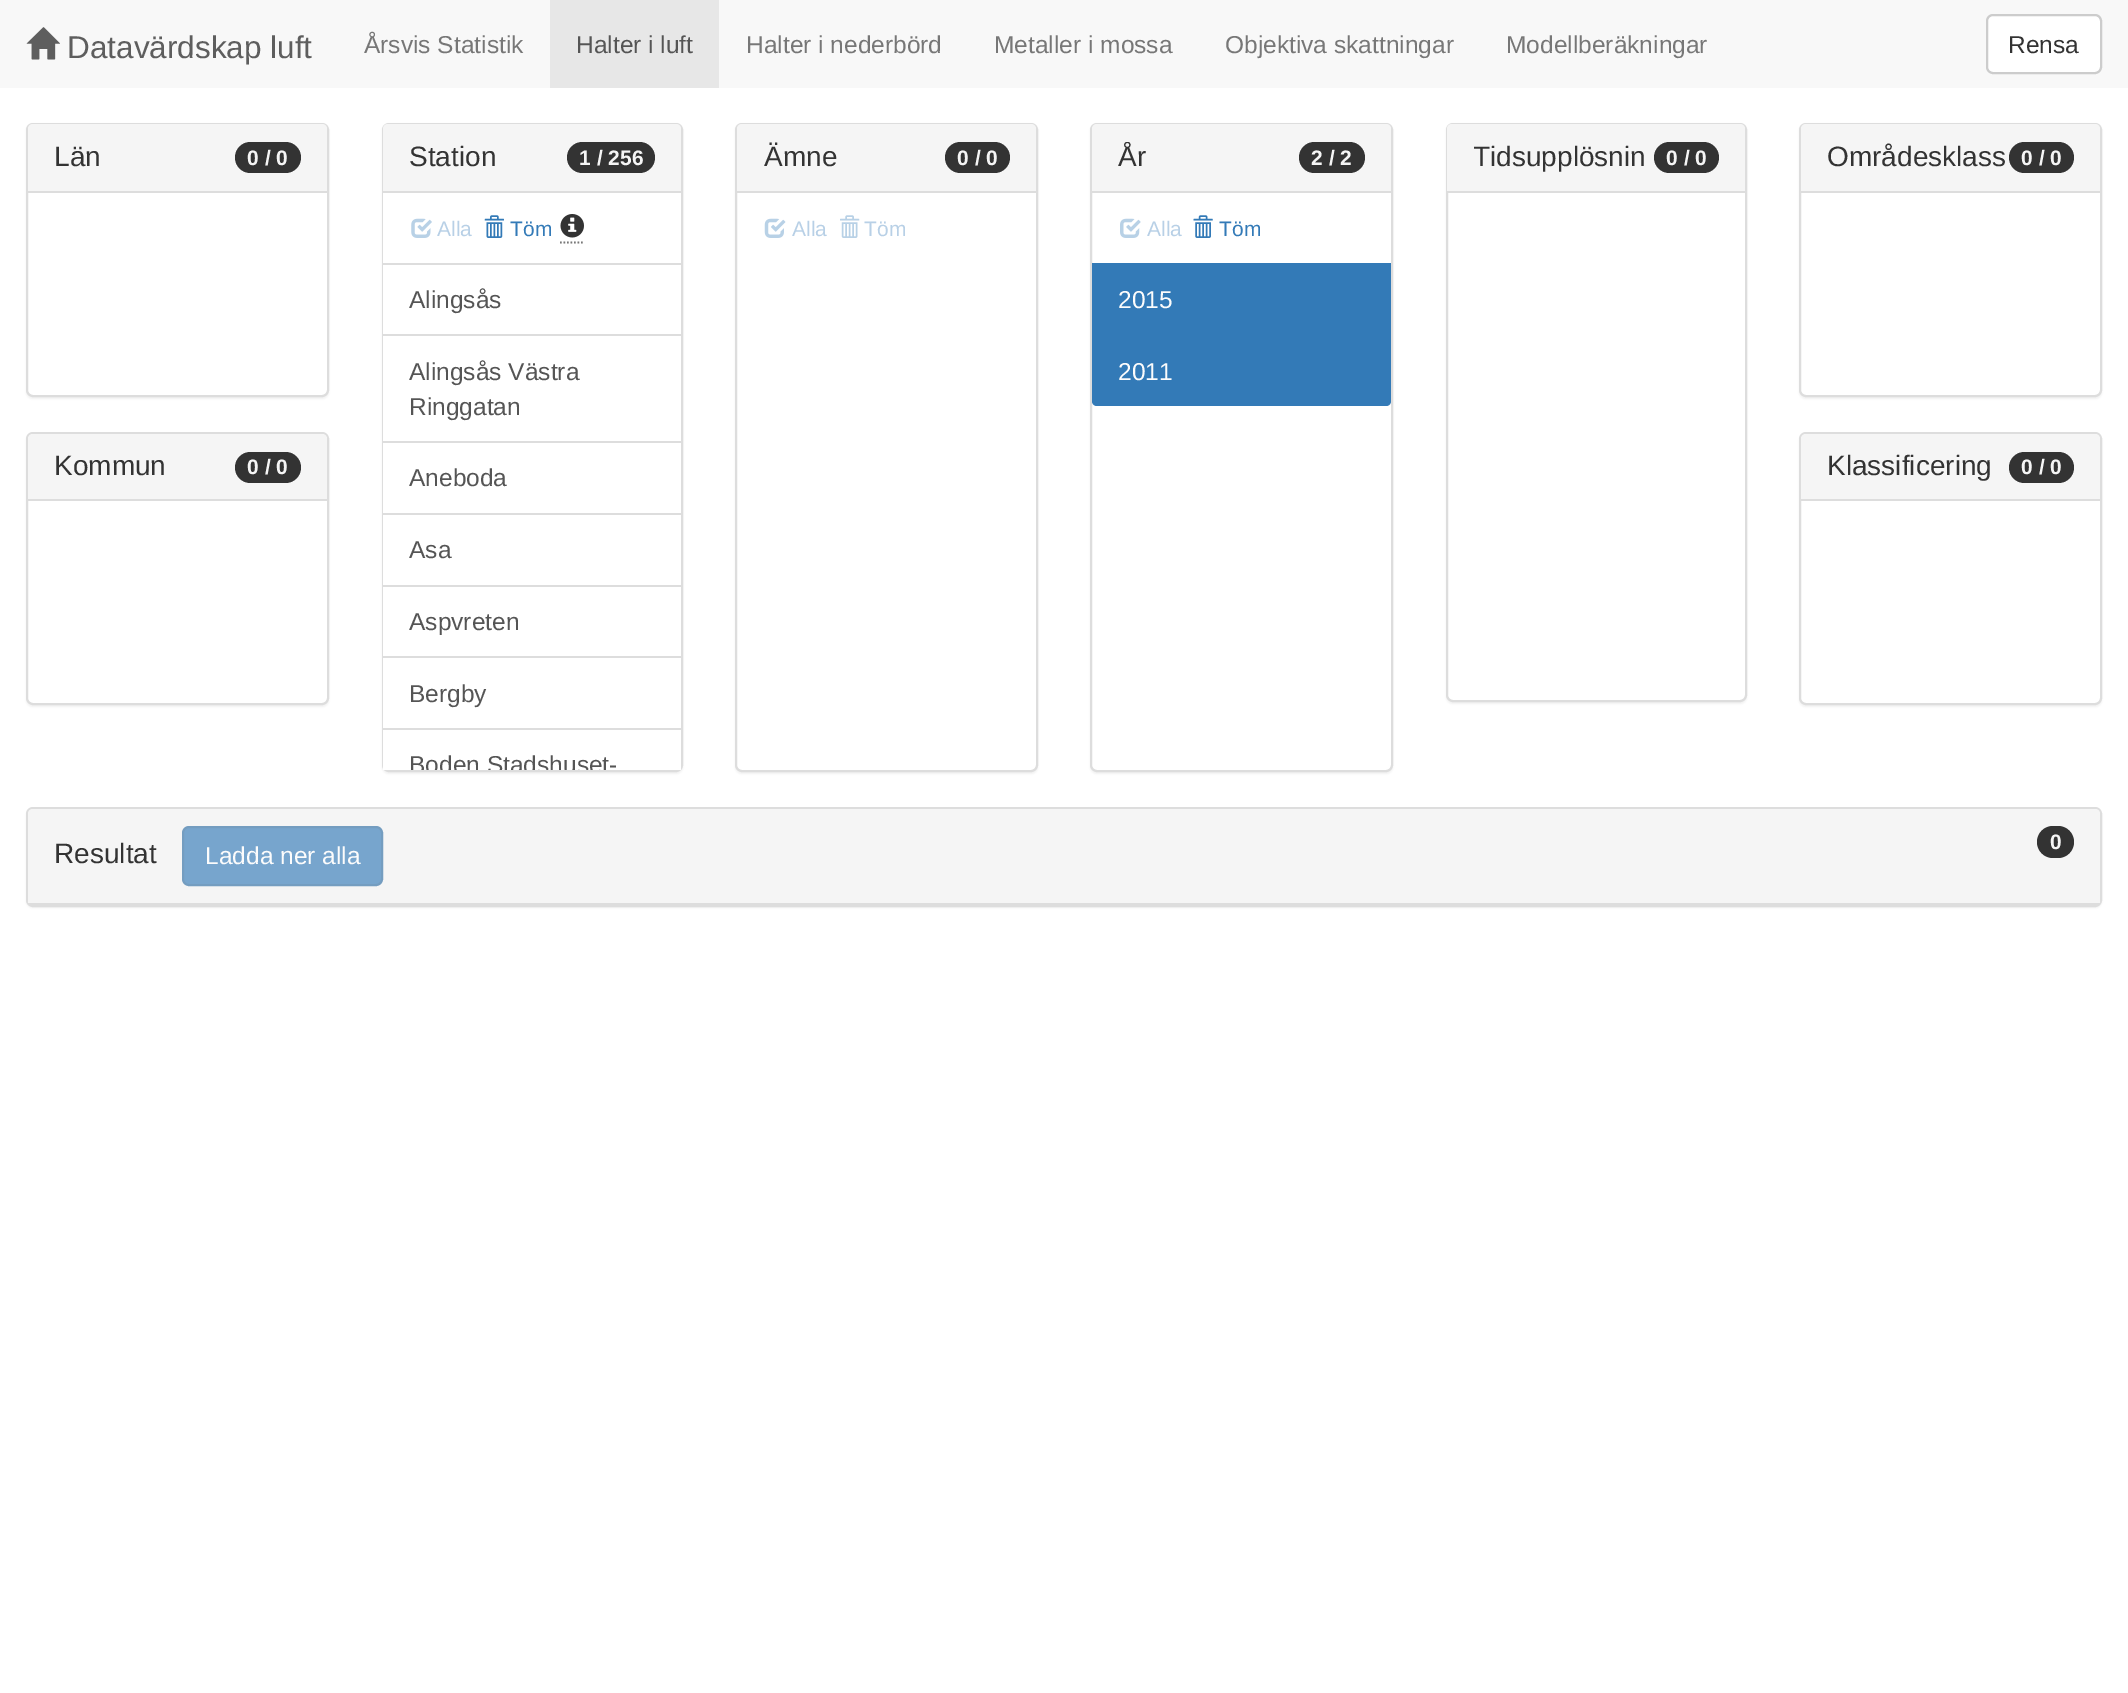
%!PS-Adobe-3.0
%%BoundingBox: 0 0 2128 1693
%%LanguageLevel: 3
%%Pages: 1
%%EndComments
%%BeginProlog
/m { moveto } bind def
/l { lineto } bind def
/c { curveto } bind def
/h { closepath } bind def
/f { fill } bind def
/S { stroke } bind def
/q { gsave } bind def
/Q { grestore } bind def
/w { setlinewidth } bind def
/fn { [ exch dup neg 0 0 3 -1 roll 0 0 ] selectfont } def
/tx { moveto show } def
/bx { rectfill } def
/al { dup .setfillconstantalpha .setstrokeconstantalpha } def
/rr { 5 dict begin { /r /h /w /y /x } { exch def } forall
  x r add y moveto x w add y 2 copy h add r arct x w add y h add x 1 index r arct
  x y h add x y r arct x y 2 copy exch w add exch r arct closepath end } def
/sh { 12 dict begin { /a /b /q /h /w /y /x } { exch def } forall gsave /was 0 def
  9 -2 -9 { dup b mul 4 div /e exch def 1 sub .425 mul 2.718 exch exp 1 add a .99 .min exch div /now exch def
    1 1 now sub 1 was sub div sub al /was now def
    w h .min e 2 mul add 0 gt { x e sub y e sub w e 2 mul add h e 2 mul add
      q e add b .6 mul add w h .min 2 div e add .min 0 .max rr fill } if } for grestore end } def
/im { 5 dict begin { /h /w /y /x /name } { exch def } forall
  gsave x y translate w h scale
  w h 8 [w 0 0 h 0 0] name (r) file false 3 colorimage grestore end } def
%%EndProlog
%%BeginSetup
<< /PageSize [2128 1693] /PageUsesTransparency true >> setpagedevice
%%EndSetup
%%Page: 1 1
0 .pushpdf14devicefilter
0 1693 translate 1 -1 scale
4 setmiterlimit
1 setgray
0 0 2128 1693 bx
0.973 setgray
0 0 2128 88 bx
(image0.raw) 26 27 34 33 im
/LiberationSans-Regular 31.5 fn
0.369 setgray
(Datavärdskap luft) 67 58 tx
/LiberationSans-Regular 24.5 fn
0.467 setgray
(Årsvis Statistik) 364 53 tx
0.906 setgray
550 0 169 88 bx
0.333 setgray
(Halter i luft) 576 53 tx
0.467 setgray
(Halter i nederbörd) 746 53 tx
(Metaller i mossa) 994 53 tx
(Objektiva skattningar) 1225 53 tx
(Modellberäkningar) 1506 53 tx
1 setgray
1987 15 114 58 6 rr q f Q
0.8 setgray
2 w
S
0.2 setgray
(Rensa) 2008 53 tx
0 setgray
26 124 303 275 7 1 0.05 sh
1 setgray
27 124 301 272 6 rr q f Q
0.867 setgray
S
0.961 setgray
33 124 m 322 124 l 325 124 327 126 327 129 c 327 193 l 28 193 l 28 129 l 28 126 30 124 33 124 c h f
0.867 setgray
28 191 299 2 bx
/LiberationSans-Regular 28 fn
0.2 setgray
(Län) 54 166 tx
235 142 66 31 15.5 rr f
/LiberationSans-Bold 21 fn
0.961 setgray
(0 / 0) 247 165 tx
0 setgray
26 434 303 273 7 1 0.05 sh
1 setgray
27 433 301 271 6 rr q f Q
0.867 setgray
S
0.961 setgray
33 434 m 322 434 l 325 434 327 436 327 439 c 327 501 l 28 501 l 28 439 l 28 436 30 434 33 434 c h f
0.867 setgray
28 499 299 2 bx
/LiberationSans-Regular 28 fn
0.2 setgray
(Kommun) 54 475 tx
235 452 66 31 15.5 rr f
/LiberationSans-Bold 21 fn
0.961 setgray
(0 / 0) 247 474 tx
0 setgray
382 124 301 650 7 1 0.05 sh
0.867 setgray
383 124 299 647 6 rr S
0.961 setgray
388 124 m 676 124 l 679 124 681 126 681 129 c 681 193 l 383 193 l 383 129 l 383 126 385 124 388 124 c h f
0.867 setgray
383 191 298 2 bx
/LiberationSans-Regular 28 fn
0.2 setgray
(Station) 409 166 tx
567 142 88 31 15.5 rr f
/LiberationSans-Bold 21 fn
0.961 setgray
(1 / 256) 579 165 tx
1 setgray
383 193 298 70 bx
(image1.raw) 411 218 21 20 im
/LiberationSans-Regular 21 fn
0.722 0.816 0.902 setrgbcolor
(Alla) 437 236 tx
(image2.raw) 484 215 20 23 im
0.2 0.478 0.718 setrgbcolor
(Töm) 510 236 tx
0.467 setgray
1.8 w
[1.75 1.75] 0 setdash
560 242.5 m 584.5 242.5 l S
(image3.raw) 560 214 24 24 im
1 setgray
383 265 298 69 bx
0.867 setgray
383 263 298 2 bx
383 334 298 2 bx
/LiberationSans-Regular 24.5 fn
0.333 setgray
(Alingsås) 409 308 tx
1 setgray
383 336 298 105 bx
0.867 setgray
383 441 298 2 bx
0.333 setgray
(Alingsås Västra) 409 380 tx
(Ringgatan) 409 415 tx
1 setgray
383 443 298 70 bx
0.867 setgray
383 513 298 2 bx
0.333 setgray
(Aneboda) 409 486 tx
1 setgray
383 515 298 70 bx
0.333 setgray
(Asa) 409 558 tx
1 setgray
383 587 298 69 bx
0.867 setgray
383 585 298 2 bx
383 656 298 2 bx
0.333 setgray
(Aspvreten) 409 630 tx
1 setgray
383 658 298 70 bx
0.867 setgray
383 728 298 2 bx
0.333 setgray
(Bergby) 409 702 tx
1 setgray
383 730 298 40 bx
q
383 263 298 507 rectclip
0.333 setgray
(Boden Stadshuset-) 409 773 tx
Q
0 setgray
735 124 303 650 7 1 0.05 sh
1 setgray
736 124 301 647 6 rr q f Q
0.867 setgray
2 w
[] 0 setdash
S
0.961 setgray
742 124 m 1031 124 l 1034 124 1036 126 1036 129 c 1036 193 l 737 193 l 737 129 l 737 126 739 124 742 124 c h f
0.867 setgray
737 191 299 2 bx
/LiberationSans-Regular 28 fn
0.2 setgray
(Ämne) 764 166 tx
945 142 65 31 15.5 rr f
/LiberationSans-Bold 21 fn
0.961 setgray
(0 / 0) 957 165 tx
(image4.raw) 764 218 22 20 im
/LiberationSans-Regular 21 fn
0.722 0.816 0.902 setrgbcolor
(Alla) 792 236 tx
(image5.raw) 840 215 20 23 im
(Töm) 864 236 tx
0 setgray
1090 124 303 650 7 1 0.05 sh
1 setgray
1091 124 301 647 6 rr q f Q
0.867 setgray
S
0.961 setgray
1097 124 m 1386 124 l 1389 124 1391 126 1391 129 c 1391 193 l 1092 193 l 1092 129 l 1092 126 1094 124 1097 124 c h f
0.867 setgray
1092 191 299 2 bx
q
1118 142 181 31 rectclip
/LiberationSans-Regular 28 fn
0.2 setgray
(År) 1118 166 tx
Q
0.2 setgray
1299 142 66 31 15.5 rr f
/LiberationSans-Bold 21 fn
0.961 setgray
(2 / 2) 1311 165 tx
(image6.raw) 1120 218 21 20 im
/LiberationSans-Regular 21 fn
0.722 0.816 0.902 setrgbcolor
(Alla) 1147 236 tx
(image7.raw) 1193 215 20 23 im
0.2 0.478 0.718 setrgbcolor
(Töm) 1219 236 tx
1092 263 299 71 bx
/LiberationSans-Regular 24.5 fn
0.988 setgray
(2015) 1118 308 tx
0.2 0.478 0.718 setrgbcolor
1092 334 m 1391 334 l 1391 401 l 1391 404 1389 406 1386 406 c 1097 406 l 1094 406 1092 404 1092 401 c h f
0.988 setgray
(2011) 1118 380 tx
0 setgray
1446 124 301 580 7 1 0.05 sh
1 setgray
1447 124 299 577 6 rr q f Q
0.867 setgray
S
0.961 setgray
1452 124 m 1740 124 l 1743 124 1745 126 1745 129 c 1745 193 l 1447 193 l 1447 129 l 1447 126 1449 124 1452 124 c h f
0.867 setgray
1447 191 298 2 bx
q
1474 142 180 31 rectclip
/LiberationSans-Regular 28 fn
0.2 setgray
(Tidsupplösnin) 1473 166 tx
Q
0.2 setgray
1654 142 65 31 15.5 rr f
/LiberationSans-Bold 21 fn
0.961 setgray
(0 / 0) 1666 165 tx
0 setgray
1799 124 303 275 7 1 0.05 sh
1 setgray
1800 124 301 272 6 rr q f Q
0.867 setgray
S
0.961 setgray
1806 124 m 2095 124 l 2098 124 2100 126 2100 129 c 2100 193 l 1801 193 l 1801 129 l 1801 126 1803 124 1806 124 c h f
0.867 setgray
1801 191 299 2 bx
/LiberationSans-Regular 28 fn
0.2 setgray
(Områdesklass) 1827 166 tx
2009 142 65 31 15.5 rr f
/LiberationSans-Bold 21 fn
0.961 setgray
(0 / 0) 2021 165 tx
0 setgray
1799 434 303 273 7 1 0.05 sh
1 setgray
1800 433 301 271 6 rr q f Q
0.867 setgray
S
0.961 setgray
1806 434 m 2095 434 l 2098 434 2100 436 2100 439 c 2100 501 l 1801 501 l 1801 439 l 1801 436 1803 434 1806 434 c h f
0.867 setgray
1801 499 299 2 bx
/LiberationSans-Regular 28 fn
0.2 setgray
(Klassificering) 1827 475 tx
2009 452 65 31 15.5 rr f
/LiberationSans-Bold 21 fn
0.961 setgray
(0 / 0) 2021 474 tx
0 setgray
26 809 2076 99 7 1 0.05 sh
0.867 setgray
27 808 2074 98 6 rr S
0.961 setgray
33 809 m 2095 809 l 2098 809 2100 811 2100 814 c 2100 905 l 28 905 l 28 814 l 28 811 30 809 33 809 c h f
0.867 setgray
28 903 2072 2 bx
/LiberationSans-Regular 28 fn
0.2 setgray
(Resultat) 54 863 tx
0.467 0.647 0.804 setrgbcolor
183 827 199 58 6 rr q f Q
0.455 0.616 0.753 setrgbcolor
S
/LiberationSans-Regular 24.5 fn
0.988 setgray
(Ladda ner alla) 205 864 tx
0.2 setgray
2037 826 37 32 16 rr f
/LiberationSans-Bold 21 fn
0.961 setgray
(0) 2050 849 tx
.poppdf14devicefilter showpage
%%EOF
